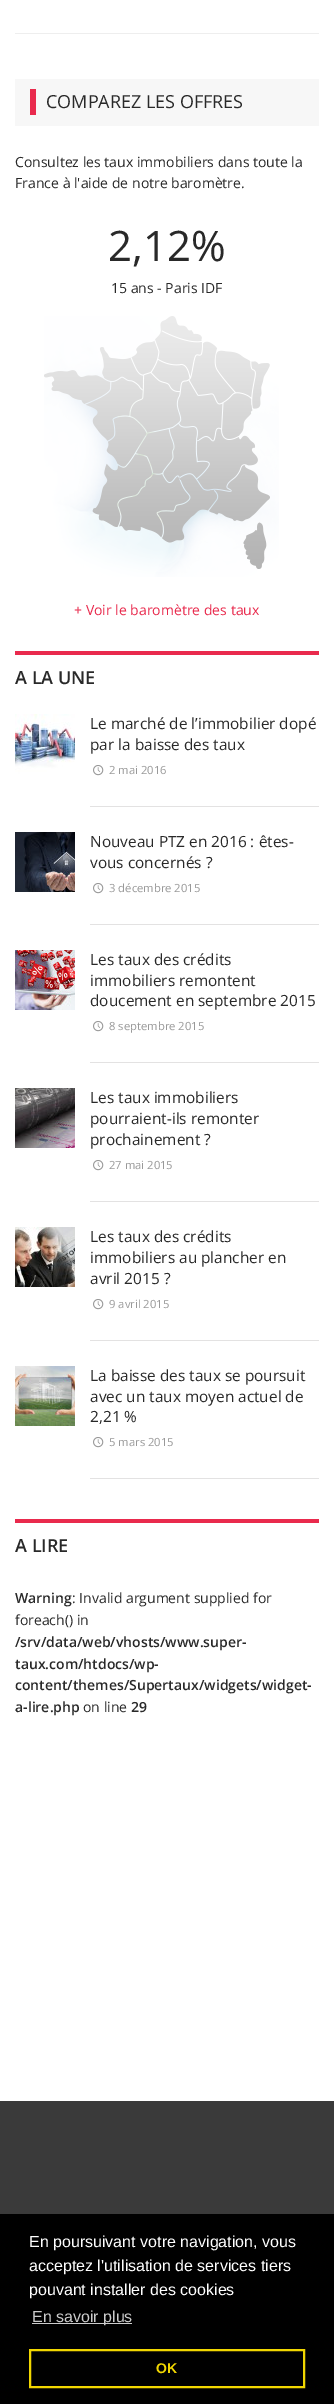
%!PS-Adobe-3.0
%%BoundingBox: 0 0 334 2404
%%LanguageLevel: 3
%%Pages: 1
%%EndComments
%%BeginProlog
/w { setlinewidth } bind def
/fn { [ exch dup neg 0 0 3 -1 roll 0 0 ] selectfont } def
/tx { moveto show } def
/bx { rectfill } def
/im { 5 dict begin { /h /w /y /x /name } { exch def } forall
  gsave x y translate w h scale
  w h 8 [w 0 0 h 0 0] name (r) file false 3 colorimage grestore end } def
%%EndProlog
%%BeginSetup
<< /PageSize [334 2404] >> setpagedevice
%%EndSetup
%%Page: 1 1
0 2404 translate 1 -1 scale
4 setmiterlimit
1 setgray
0 0 334 2404 bx
0.933 setgray
15 33 304 1 bx
0.969 setgray
15 79 304 47 bx
0.914 0.165 0.302 setrgbcolor
30 89 6 26 bx
/OpenSans-Regular 18 fn
0.161 setgray
(COMPAREZ LES OFFRES) 46 108 tx
/OpenSans-Regular 14 fn
(Consultez les taux immobiliers dans toute la) 15 167 tx
(France à l'aide de notre baromètre.) 15 188 tx
/OpenSans-Regular 42 fn
(2,12%) 108 261 tx
/OpenSans-Regular 14 fn
(15 ans - Paris IDF) 111 293 tx
(image0.raw) 44 316 235 261 im
0.914 0.165 0.302 setrgbcolor
(+ Voir le baromètre des taux) 74 615 tx
15 651 304 4 bx
/OpenSans-SemiBold 18 fn
0.161 setgray
(A LA UNE) 15 684 tx
(image1.raw) 15 714 60 60 im
/OpenSans-Regular 15.4 fn
(Le marché de l’immobilier dopé) 90 729 tx
(par la baisse des taux) 90 750 tx
0.89 0.886 0.886 setrgbcolor
90 806 229 1 bx
(image2.raw) 93 765 11 11 im
/OpenSans-Regular 11.25 fn
0.6 setgray
(2 mai 2016) 109 774 tx
(image3.raw) 15 832 60 60 im
/OpenSans-Regular 15.4 fn
0.161 setgray
(Nouveau PTZ en 2016 : êtes-) 90 847 tx
(vous concernés ?) 90 868 tx
0.89 0.886 0.886 setrgbcolor
90 924 229 1 bx
(image2.raw) 93 883 11 11 im
/OpenSans-Regular 11.25 fn
0.6 setgray
(3 décembre 2015) 109 892 tx
(image4.raw) 15 950 60 60 im
/OpenSans-Regular 15.4 fn
0.161 setgray
(Les taux des crédits) 90 965 tx
(immobiliers remontent) 90 986 tx
(doucement en septembre 2015) 90 1006 tx
0.89 0.886 0.886 setrgbcolor
90 1062 229 1 bx
(image2.raw) 93 1021 11 11 im
/OpenSans-Regular 11.25 fn
0.6 setgray
(8 septembre 2015) 109 1030 tx
(image5.raw) 15 1088 60 60 im
/OpenSans-Regular 15.4 fn
0.161 setgray
(Les taux immobiliers) 90 1103 tx
(pourraient-ils remonter) 90 1124 tx
(prochainement ?) 90 1145 tx
0.89 0.886 0.886 setrgbcolor
90 1201 229 1 bx
(image2.raw) 93 1160 11 11 im
/OpenSans-Regular 11.25 fn
0.6 setgray
(27 mai 2015) 109 1169 tx
(image6.raw) 15 1227 60 60 im
/OpenSans-Regular 15.4 fn
0.161 setgray
(Les taux des crédits) 90 1242 tx
(immobiliers au plancher en) 90 1263 tx
(avril 2015 ?) 90 1284 tx
0.89 0.886 0.886 setrgbcolor
90 1340 229 1 bx
(image2.raw) 93 1299 11 11 im
/OpenSans-Regular 11.25 fn
0.6 setgray
(9 avril 2015) 109 1308 tx
(image7.raw) 15 1366 60 60 im
/OpenSans-Regular 15.4 fn
0.161 setgray
(La baisse des taux se poursuit) 90 1381 tx
(avec un taux moyen actuel de) 90 1402 tx
(2,21 %) 90 1422 tx
0.89 0.886 0.886 setrgbcolor
90 1478 229 1 bx
(image2.raw) 93 1437 11 11 im
/OpenSans-Regular 11.25 fn
0.6 setgray
(5 mars 2015) 109 1446 tx
0.914 0.165 0.302 setrgbcolor
15 1519 304 4 bx
/OpenSans-SemiBold 18 fn
0.161 setgray
(A LIRE) 15 1552 tx
/OpenSans-SemiBold 14 fn
(Warning) 15 1603 tx
/OpenSans-Regular 14 fn
(: Invalid argument supplied for) 72 1603 tx
(foreach\(\) in) 15 1625 tx
/OpenSans-SemiBold 14 fn
(/srv/data/web/vhosts/www.super-) 15 1647 tx
(taux.com/htdocs/wp-) 15 1669 tx
(content/themes/Supertaux/widgets/widget-) 15 1690 tx
(a-lire.php) 15 1712 tx
/OpenSans-Regular 14 fn
(on line) 83 1712 tx
/OpenSans-SemiBold 14 fn
(29) 131 1712 tx
0.227 setgray
0 2101 334 113 bx
0 setgray
0 2214 334 190 bx
/LiberationSans-Regular 16 fn
1 setgray
(En poursuivant votre navigation, vous) 29 2247 tx
(acceptez l'utilisation de services tiers) 29 2271 tx
(pouvant installer des cookies) 29 2295 tx
0.8 setgray
32 2323 100 1 bx
(En savoir plus) 32 2322 tx
0.945 0.839 0 setrgbcolor
2 w
30 2350 274 37 rectstroke
/LiberationSans-Bold 14 fn
(OK) 156 2373 tx
showpage
%%EOF
